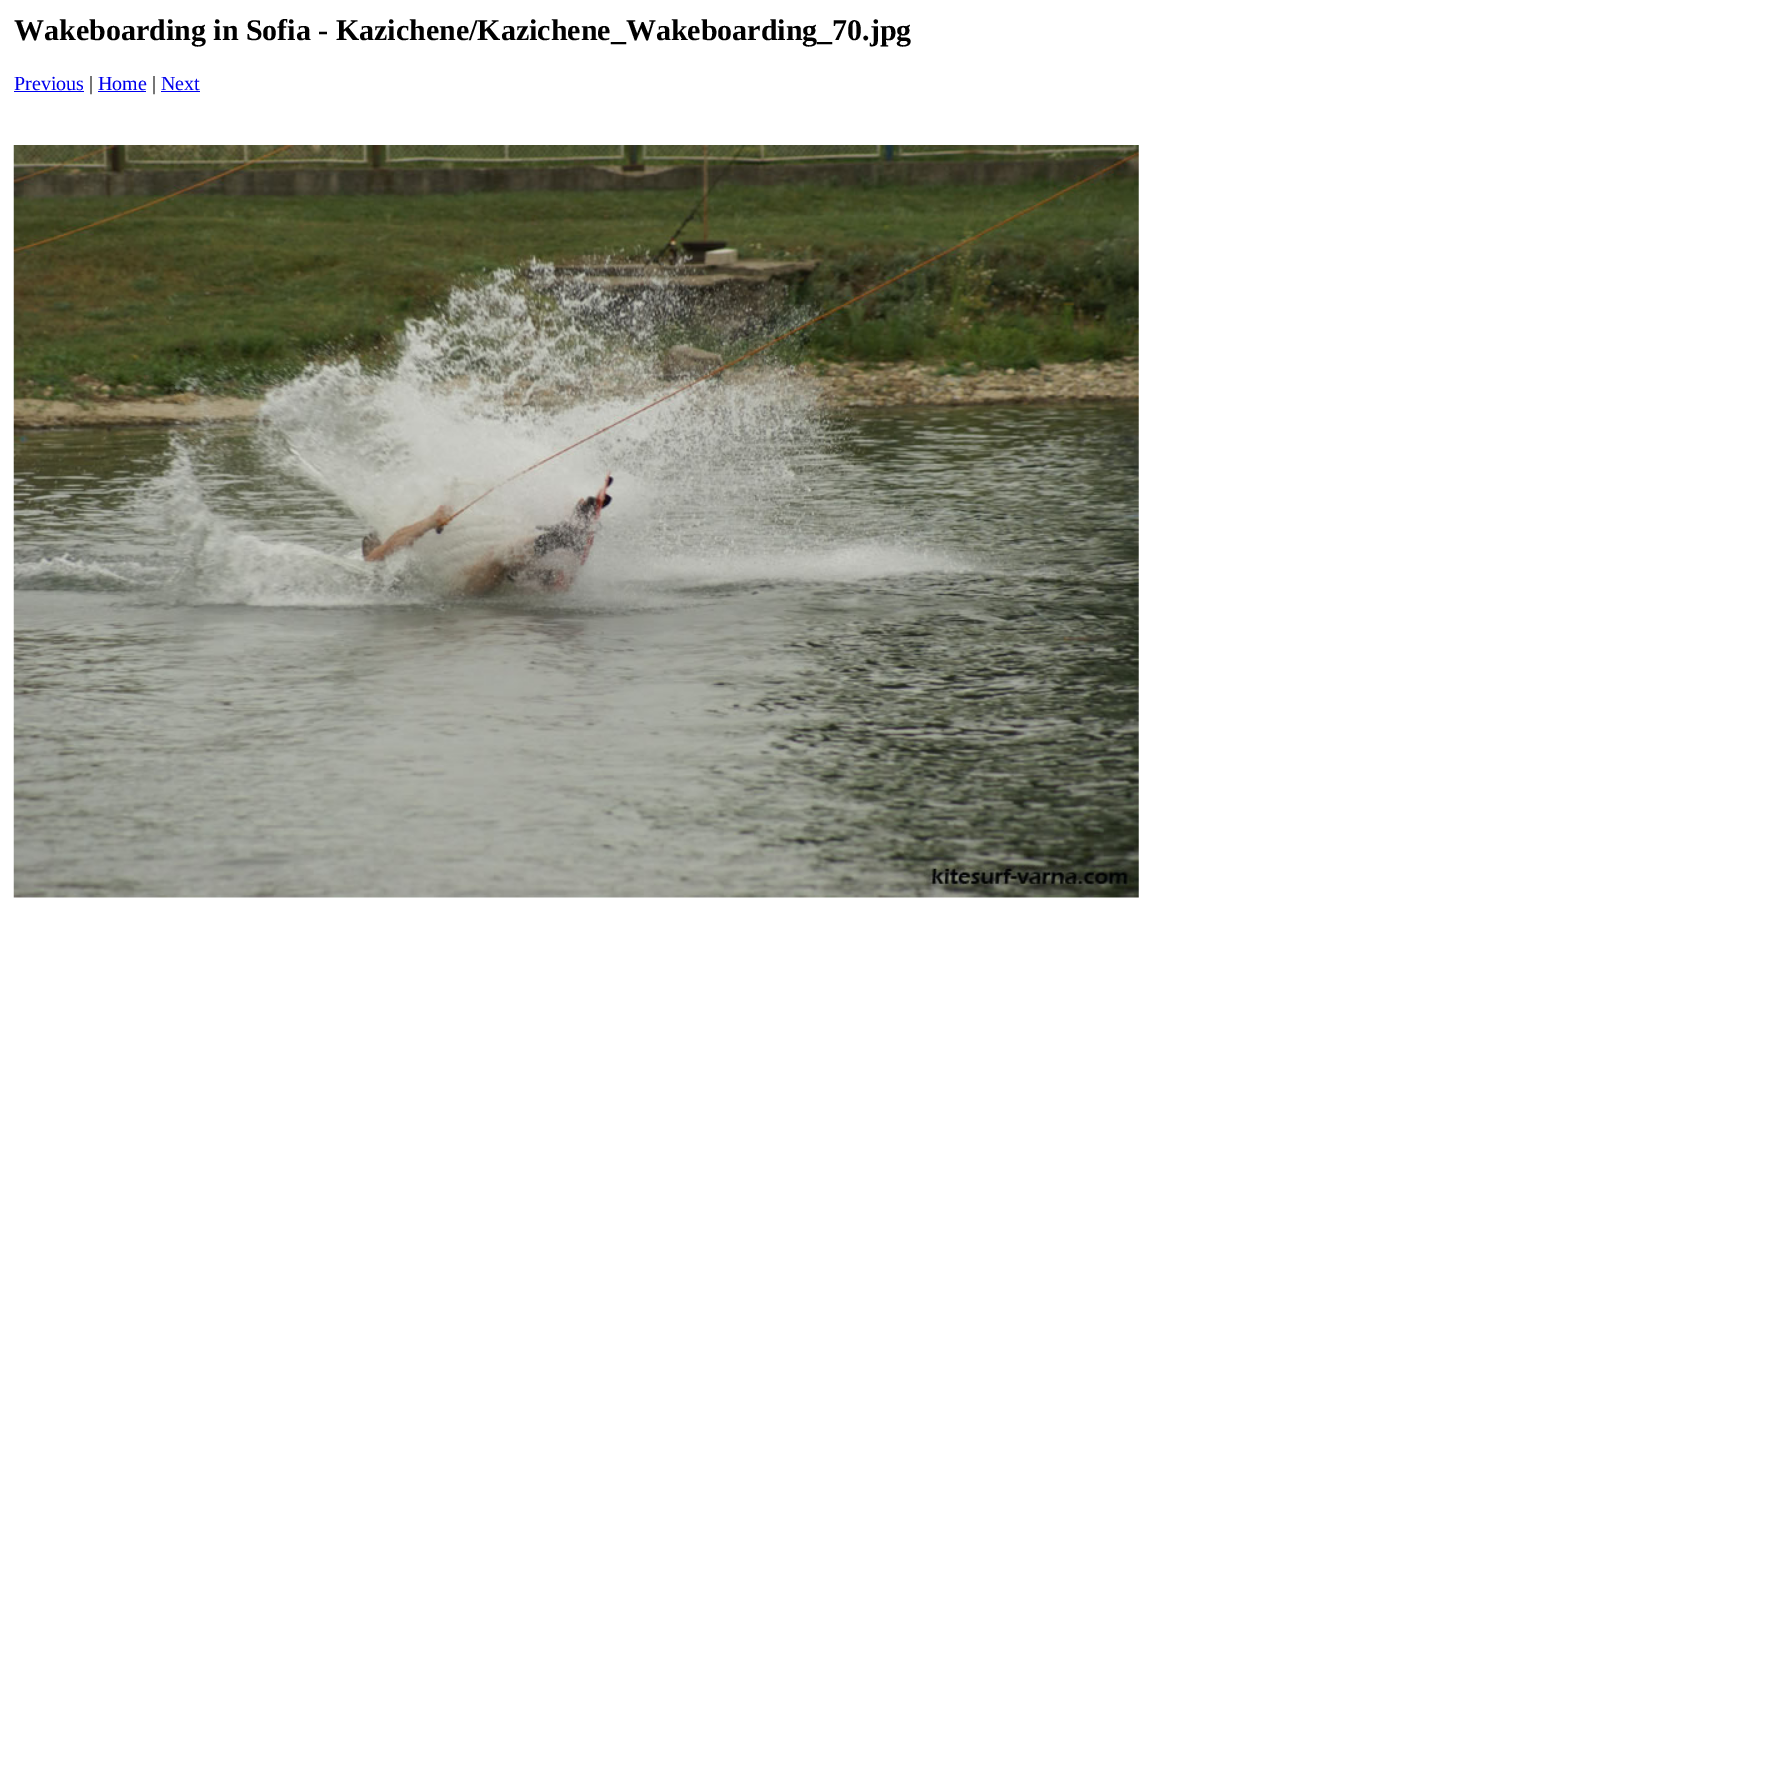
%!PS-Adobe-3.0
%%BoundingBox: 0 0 1791 1789
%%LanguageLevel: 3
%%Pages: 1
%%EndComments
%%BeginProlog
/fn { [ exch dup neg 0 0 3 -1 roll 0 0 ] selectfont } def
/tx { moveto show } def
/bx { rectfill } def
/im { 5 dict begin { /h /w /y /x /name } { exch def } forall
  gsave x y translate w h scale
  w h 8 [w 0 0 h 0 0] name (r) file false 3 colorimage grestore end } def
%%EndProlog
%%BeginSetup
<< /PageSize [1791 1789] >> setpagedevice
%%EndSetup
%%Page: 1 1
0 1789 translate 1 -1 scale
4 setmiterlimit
1 setgray
0 0 1791 1789 bx
/LiberationSerif-Bold 30 fn
0 setgray
(Wakeboarding in Sofia - Kazichene/Kazichene_Wakeboarding_70.jpg) 14 40 tx
/LiberationSerif-Regular 20 fn
0 0 0.933 setrgbcolor
(Previous) 14 90 tx
14 91 70 1 bx
0 setgray
(|) 89 90 tx
0 0 0.933 setrgbcolor
(Home) 98 90 tx
98 91 48 1 bx
0 setgray
(|) 152 90 tx
0 0 0.933 setrgbcolor
(Next) 161 90 tx
161 91 39 1 bx
(image0.raw) 13 145 1126 753 im
showpage
%%EOF
